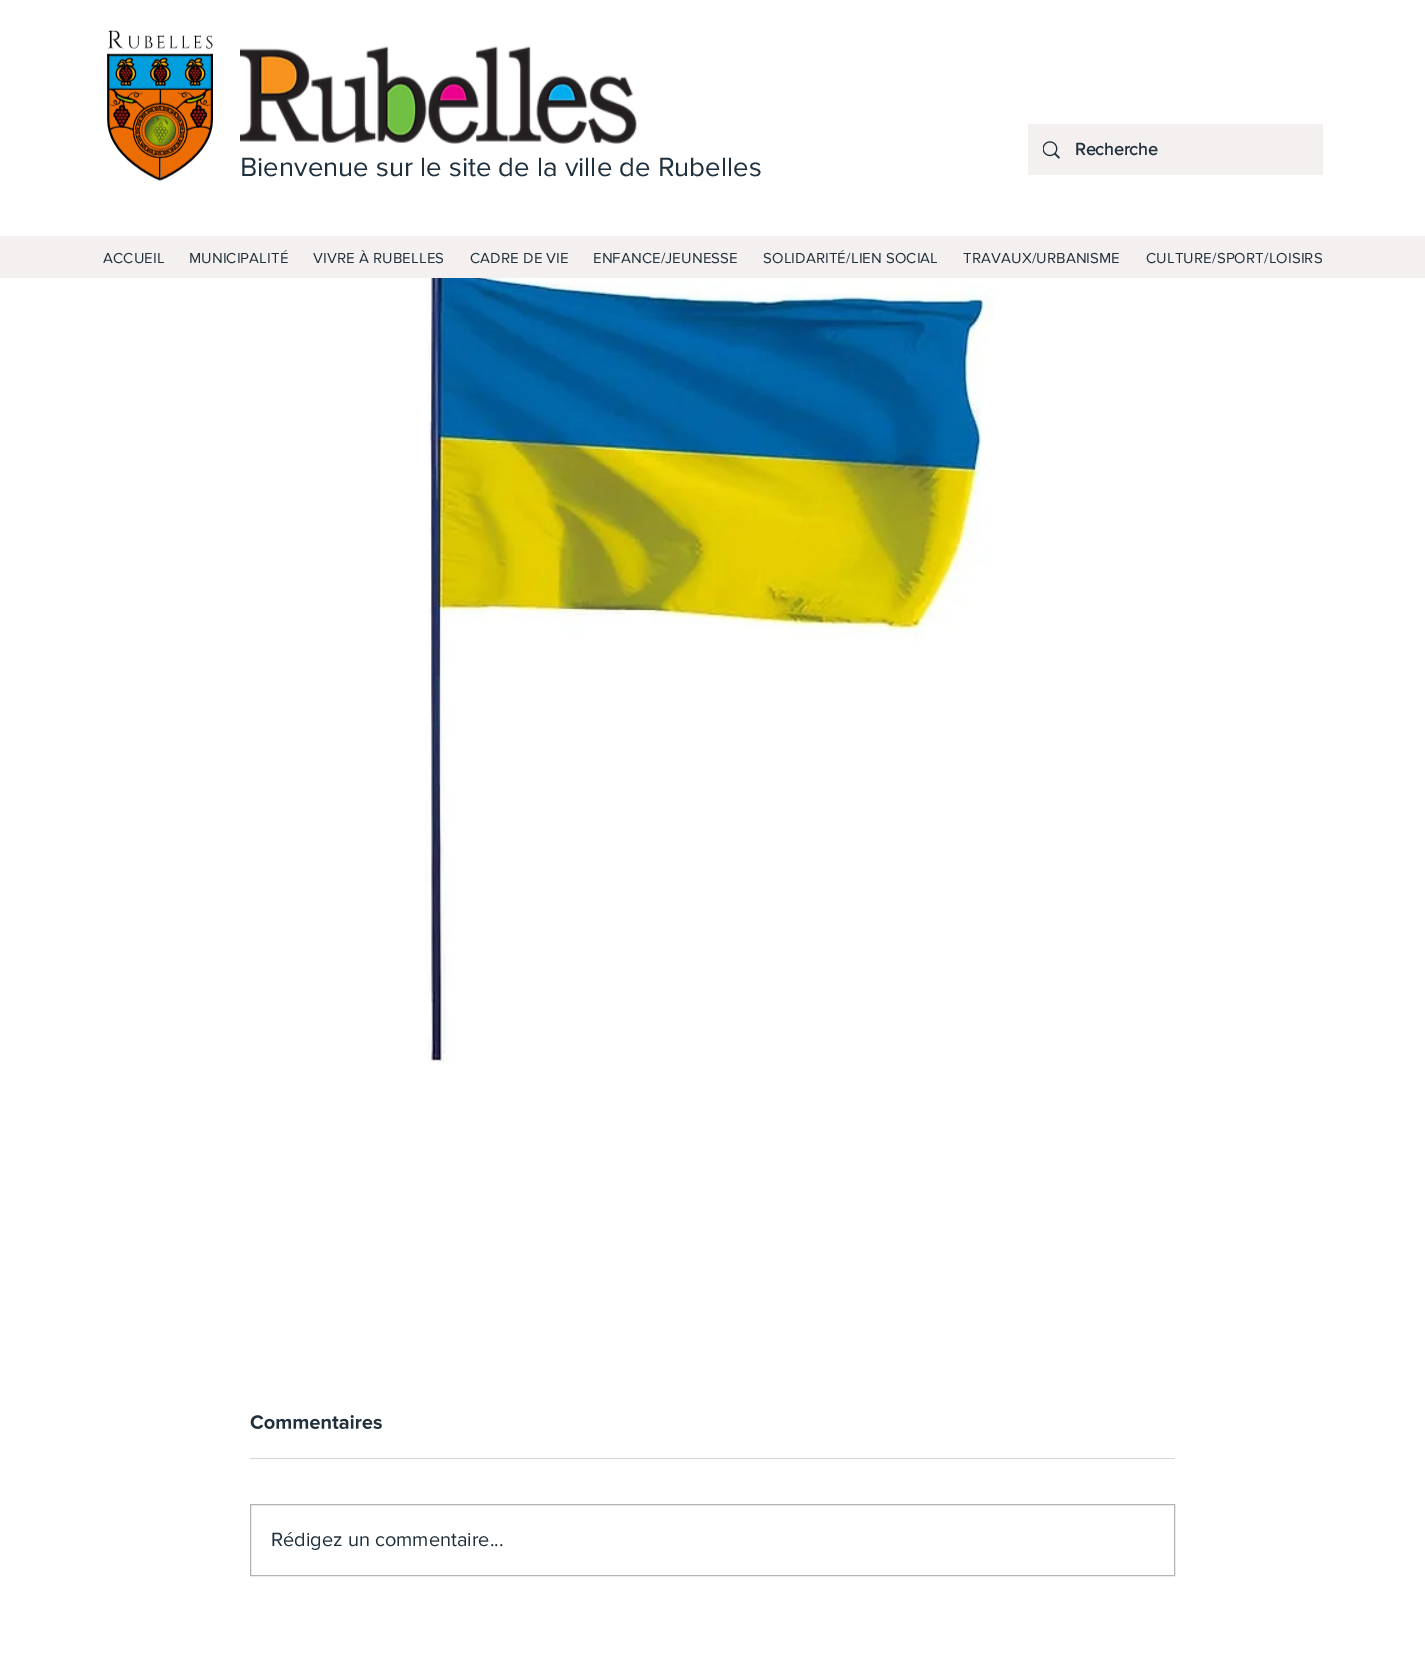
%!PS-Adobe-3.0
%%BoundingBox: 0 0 1425 1677
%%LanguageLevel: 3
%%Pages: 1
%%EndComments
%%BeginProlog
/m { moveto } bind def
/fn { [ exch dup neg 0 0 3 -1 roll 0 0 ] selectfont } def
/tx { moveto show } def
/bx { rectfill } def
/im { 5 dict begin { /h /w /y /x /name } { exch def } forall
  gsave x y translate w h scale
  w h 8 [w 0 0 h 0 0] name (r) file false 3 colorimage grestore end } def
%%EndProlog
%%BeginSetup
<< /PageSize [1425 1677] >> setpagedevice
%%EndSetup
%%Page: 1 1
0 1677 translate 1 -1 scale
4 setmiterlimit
1 setgray
0 0 1425 1677 bx
(image0.raw) 107 30 106 151 im
(image1.raw) 240 46 397 98 im
0.957 0.941 0.941 setrgbcolor
1028 124 295 51 bx
(image2.raw) 1043 141 17 18 im
/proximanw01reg-Bold 17.5 fn
0.125 0.188 0.235 setrgbcolor
(Recherche) 1075 155 tx
/proximanw01reg-Regular 27.5 fn
(Bienvenue sur le site de la ville de Rubelles) 240 176 tx
0.957 0.941 0.941 setrgbcolor
0 236 1425 42 bx
/proximanw01reg-Regular 15 fn
0.125 0.188 0.235 setrgbcolor
103 263 m 0.15 0 (ACCUEIL) ashow
189 263 m 0.15 0 (MUNICIPALITÉ) ashow
313 263 m 0.15 0 (VIVRE À RUBELLES) ashow
470 263 m 0.15 0 (CADRE DE VIE) ashow
593 263 m 0.15 0 (ENFANCE/JEUNESSE) ashow
763 263 m 0.15 0 (SOLIDARITÉ/LIEN SOCIAL) ashow
963 263 m 0.15 0 (TRAVAUX/URBANISME) ashow
1146 263 m 0.15 0 (CULTURE/SPORT/LOISIRS) ashow
(image3.raw) 424 278 571 787 im
(image4.raw) 250 1415 132 14 im
0.824 0.839 0.847 setrgbcolor
250 1458 925 1 bx
0.702 setgray
250.5 1504.5 924 71 rectstroke
/proximanw01reg-Regular 20 fn
0.125 0.188 0.235 setrgbcolor
(Rédigez un commentaire...) 271 1546 tx
showpage
%%EOF
